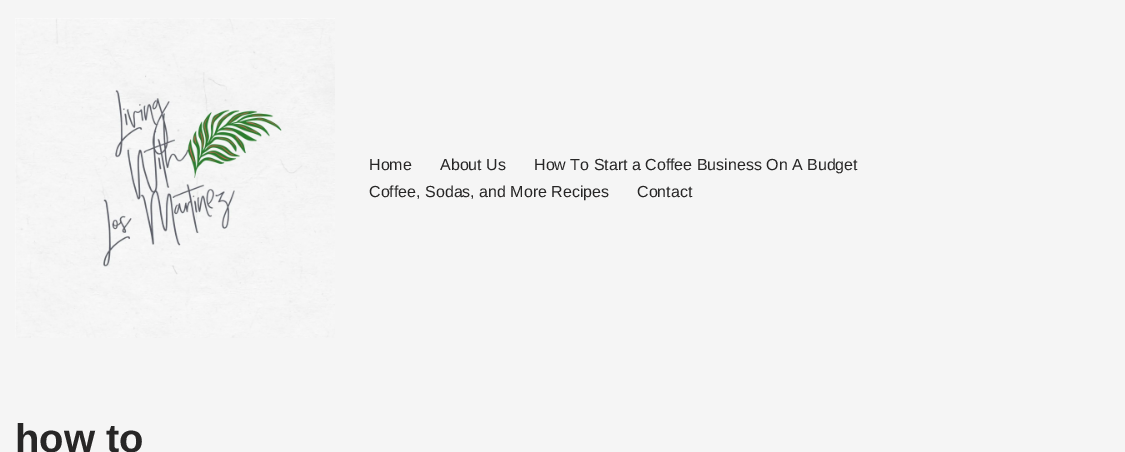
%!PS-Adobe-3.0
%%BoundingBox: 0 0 1125 452
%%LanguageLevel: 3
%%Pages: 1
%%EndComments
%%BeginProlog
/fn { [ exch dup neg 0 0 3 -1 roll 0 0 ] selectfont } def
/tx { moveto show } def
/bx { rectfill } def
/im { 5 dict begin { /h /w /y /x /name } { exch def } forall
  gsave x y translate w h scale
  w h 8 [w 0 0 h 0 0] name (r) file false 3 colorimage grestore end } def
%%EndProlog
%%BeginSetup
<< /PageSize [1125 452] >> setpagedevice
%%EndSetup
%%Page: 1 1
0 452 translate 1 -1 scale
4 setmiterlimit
0.961 setgray
0 0 1125 452 bx
(image0.raw) 15 18 320 320 im
/LiberationSans-Regular 16 fn
0.153 0.149 0.149 setrgbcolor
(Home) 369 170 tx
(About Us) 440 170 tx
(How To Start a Coffee Business On A Budget) 534 170 tx
(Coffee, Sodas, and More Recipes) 369 197 tx
(Contact) 637 197 tx
/LiberationSans-Bold 40 fn
(how to) 15 452 tx
showpage
%%EOF
